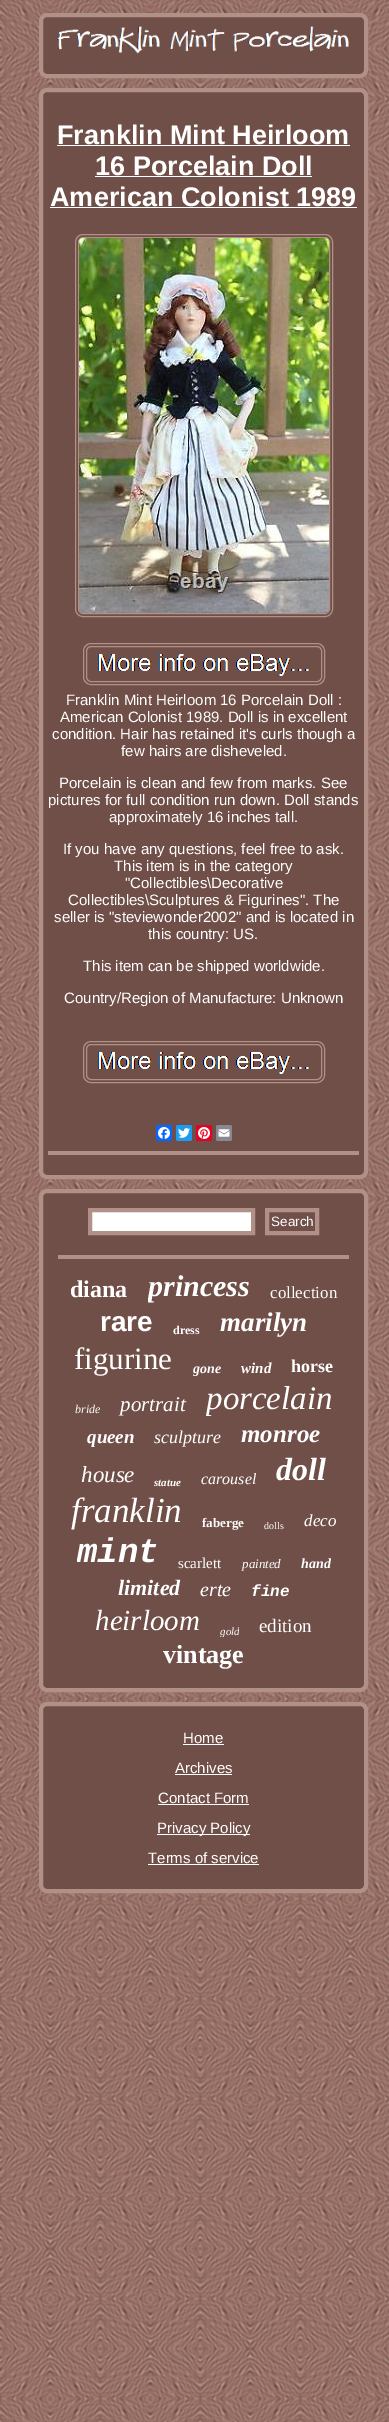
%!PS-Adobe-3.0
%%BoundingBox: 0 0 389 2422
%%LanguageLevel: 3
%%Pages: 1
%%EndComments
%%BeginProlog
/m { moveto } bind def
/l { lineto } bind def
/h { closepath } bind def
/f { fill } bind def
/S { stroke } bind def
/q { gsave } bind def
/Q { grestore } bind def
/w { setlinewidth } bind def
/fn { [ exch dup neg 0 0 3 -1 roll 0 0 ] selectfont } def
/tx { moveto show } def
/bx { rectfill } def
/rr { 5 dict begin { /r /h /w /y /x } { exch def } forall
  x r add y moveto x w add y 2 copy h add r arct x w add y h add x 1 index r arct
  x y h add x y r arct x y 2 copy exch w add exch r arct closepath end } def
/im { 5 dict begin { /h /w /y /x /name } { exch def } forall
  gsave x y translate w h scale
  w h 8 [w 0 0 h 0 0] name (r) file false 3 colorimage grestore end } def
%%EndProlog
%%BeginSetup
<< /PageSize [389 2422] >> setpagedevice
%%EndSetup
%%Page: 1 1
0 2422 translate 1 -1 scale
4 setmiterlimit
1 setgray
0 0 389 2422 bx
(image0.raw) 0 0 389 2422 im
0.439 0.31 0.282 setrgbcolor
41 15 325 61 6 rr q f Q
0.694 0.565 0.529 setrgbcolor
4 w
S
(image1.raw) 57 26 292 28 im
0.439 0.31 0.282 setrgbcolor
41 90 325 1087 6 rr q f Q
0.694 0.565 0.529 setrgbcolor
S
/LiberationSans-Bold 27 fn
1 setgray
(Franklin Mint Heirloom) 57 144 tx
57 145 293 1 bx
(16 Porcelain Doll) 95 175 tx
95 176 217 1 bx
(American Colonist 1989) 50 206 tx
50 207 307 1 bx
0.694 0.565 0.529 setrgbcolor
1 w
75.5 234.5 257 382 7.5 rr S
78.5 237.5 251 376 4.5 rr S
(image2.raw) 79 238 250 375 im
83.5 643.5 241 41 7.5 rr S
86.5 646.5 235 35 4.5 rr S
(image3.raw) 98 654 211 22 im
/LiberationSans-Regular 15 fn
1 setgray
(Franklin Mint Heirloom 16 Porcelain Doll :) 66 705 tx
(American Colonist 1989. Doll is in excellent) 60 722 tx
(condition. Hair has retained it's curls though a) 52 739 tx
(few hairs are disheveled.) 121 756 tx
(Porcelain is clean and few from marks. See) 59 788 tx
(pictures for full condition run down. Doll stands) 48 805 tx
(approximately 16 inches tall.) 109 822 tx
(If you have any questions, feel free to ask.) 63 854 tx
(This item is in the category) 114 871 tx
("Collectibles\\Decorative) 125 888 tx
(Collectibles\\Sculptures & Figurines". The) 68 905 tx
(seller is "steviewonder2002" and is located in) 54 922 tx
(this country: US.) 148 939 tx
(This item can be shipped worldwide.) 83 971 tx
(Country/Region of Manufacture: Unknown) 64 1003 tx
0.694 0.565 0.529 setrgbcolor
83.5 1041.5 241 41 7.5 rr S
86.5 1044.5 235 35 4.5 rr S
(image3.raw) 98 1052 211 22 im
0.031 0.4 1 setrgbcolor
156 1125 16 16 2 rr f
(image4.raw) 158 1127 12 12 im
0.114 0.608 0.941 setrgbcolor
176 1125 16 16 2 rr f
(image5.raw) 178 1128 12 10 im
0.902 0 0.137 setrgbcolor
196 1125 16 16 2 rr f
(image6.raw) 198 1127 12 12 im
0.533 0.537 0.565 setrgbcolor
216 1125 16 16 2 rr f
(image7.raw) 218 1129 12 8 im
0.694 0.565 0.529 setrgbcolor
48 1151 311 4 bx
0.439 0.31 0.282 setrgbcolor
41 1191 325 499 6 rr q f Q
0.694 0.565 0.529 setrgbcolor
4 w
S
1 setgray
92 1212 159 19 bx
0.694 0.565 0.529 setrgbcolor
90 1210 m 253 1210 l 253 1233 l 90 1233 l h S
267 1210 m 317 1210 l 317 1233 l 267 1233 l h S
/LiberationSans-Regular 13.5 fn
1 setgray
(Search) 271 1226 tx
0.694 0.565 0.529 setrgbcolor
58 1255 291 4 bx
/LiberationSerif-Bold 24 fn
1 setgray
(diana) 70 1297 tx
q
148 1269 102 34 rectclip
/LiberationSerif-BoldItalic 30 fn
(princess) 148 1296 tx
Q
/LiberationSerif-Regular 17 fn
(collection) 270 1298 tx
/LiberationSans-Bold 28 fn
(rare) 100 1331 tx
/LiberationSerif-Bold 12 fn
(dress) 173 1334 tx
/LiberationSerif-BoldItalic 27 fn
(marilyn) 220 1331 tx
/LiberationSerif-Regular 31 fn
(figurine) 74 1369 tx
q
193 1361 28 16 rectclip
/LiberationSerif-BoldItalic 14 fn
(gone) 193 1373 tx
Q
/LiberationSerif-BoldItalic 15 fn
(wind) 241 1373 tx
/LiberationSerif-Bold 18 fn
(horse) 291 1372 tx
/LiberationSerif-Italic 12 fn
(bride) 75 1413 tx
/LiberationSerif-Italic 21 fn
(portrait) 120 1411 tx
q
206 1380 126 37 rectclip
/LiberationSerif-Italic 33 fn
(porcelain) 206 1409 tx
Q
/LiberationSerif-BoldItalic 19 fn
(queen) 87 1443 tx
/LiberationSerif-Italic 18 fn
(sculpture) 154 1443 tx
/LiberationSerif-BoldItalic 25 fn
(monroe) 241 1442 tx
/LiberationSerif-Italic 23 fn
(house) 81 1482 tx
/LiberationSerif-BoldItalic 11 fn
(statue) 154 1486 tx
/LiberationSerif-Italic 16 fn
(carousel) 201 1484 tx
/LiberationSerif-BoldItalic 32 fn
(doll) 276 1480 tx
/LiberationSerif-Italic 35 fn
(franklin) 71 1522 tx
/LiberationSerif-Bold 13 fn
(faberge) 202 1527 tx
/LiberationSerif-Regular 10 fn
(dolls) 264 1529 tx
/LiberationSerif-Italic 17 fn
(deco) 304 1526 tx
q
77 1534 81 38 rectclip
/LiberationMono-BoldItalic 34 fn
(mint) 77 1562 tx
Q
/LiberationSerif-Regular 15 fn
(scarlett) 178 1568 tx
/LiberationSerif-Italic 13 fn
(painted) 242 1568 tx
/LiberationSerif-BoldItalic 14 fn
(hand) 301 1568 tx
/LiberationSerif-BoldItalic 22 fn
(limited) 118 1595 tx
/LiberationSerif-Italic 20 fn
(erte) 200 1596 tx
/LiberationMono-BoldItalic 16 fn
(fine) 251 1596 tx
/LiberationSerif-Italic 29 fn
(heirloom) 95 1630 tx
q
220 1625 19 12 rectclip
/LiberationSerif-Italic 11 fn
(gold) 220 1635 tx
Q
/LiberationSerif-Regular 19 fn
(edition) 259 1632 tx
/LiberationSerif-Bold 26 fn
(vintage) 163 1663 tx
0.439 0.31 0.282 setrgbcolor
41 1704 325 187 6 rr q f Q
0.694 0.565 0.529 setrgbcolor
S
/LiberationSans-Regular 15 fn
1 setgray
(Home) 183 1743 tx
183 1744 41 1 bx
(Archives) 175 1773 tx
175 1774 57 1 bx
(Contact Form) 158 1803 tx
158 1804 91 1 bx
157 1834 93 1 bx
(Privacy Policy) 157 1833 tx
(Terms of service) 148 1863 tx
148 1864 111 1 bx
showpage
%%EOF
